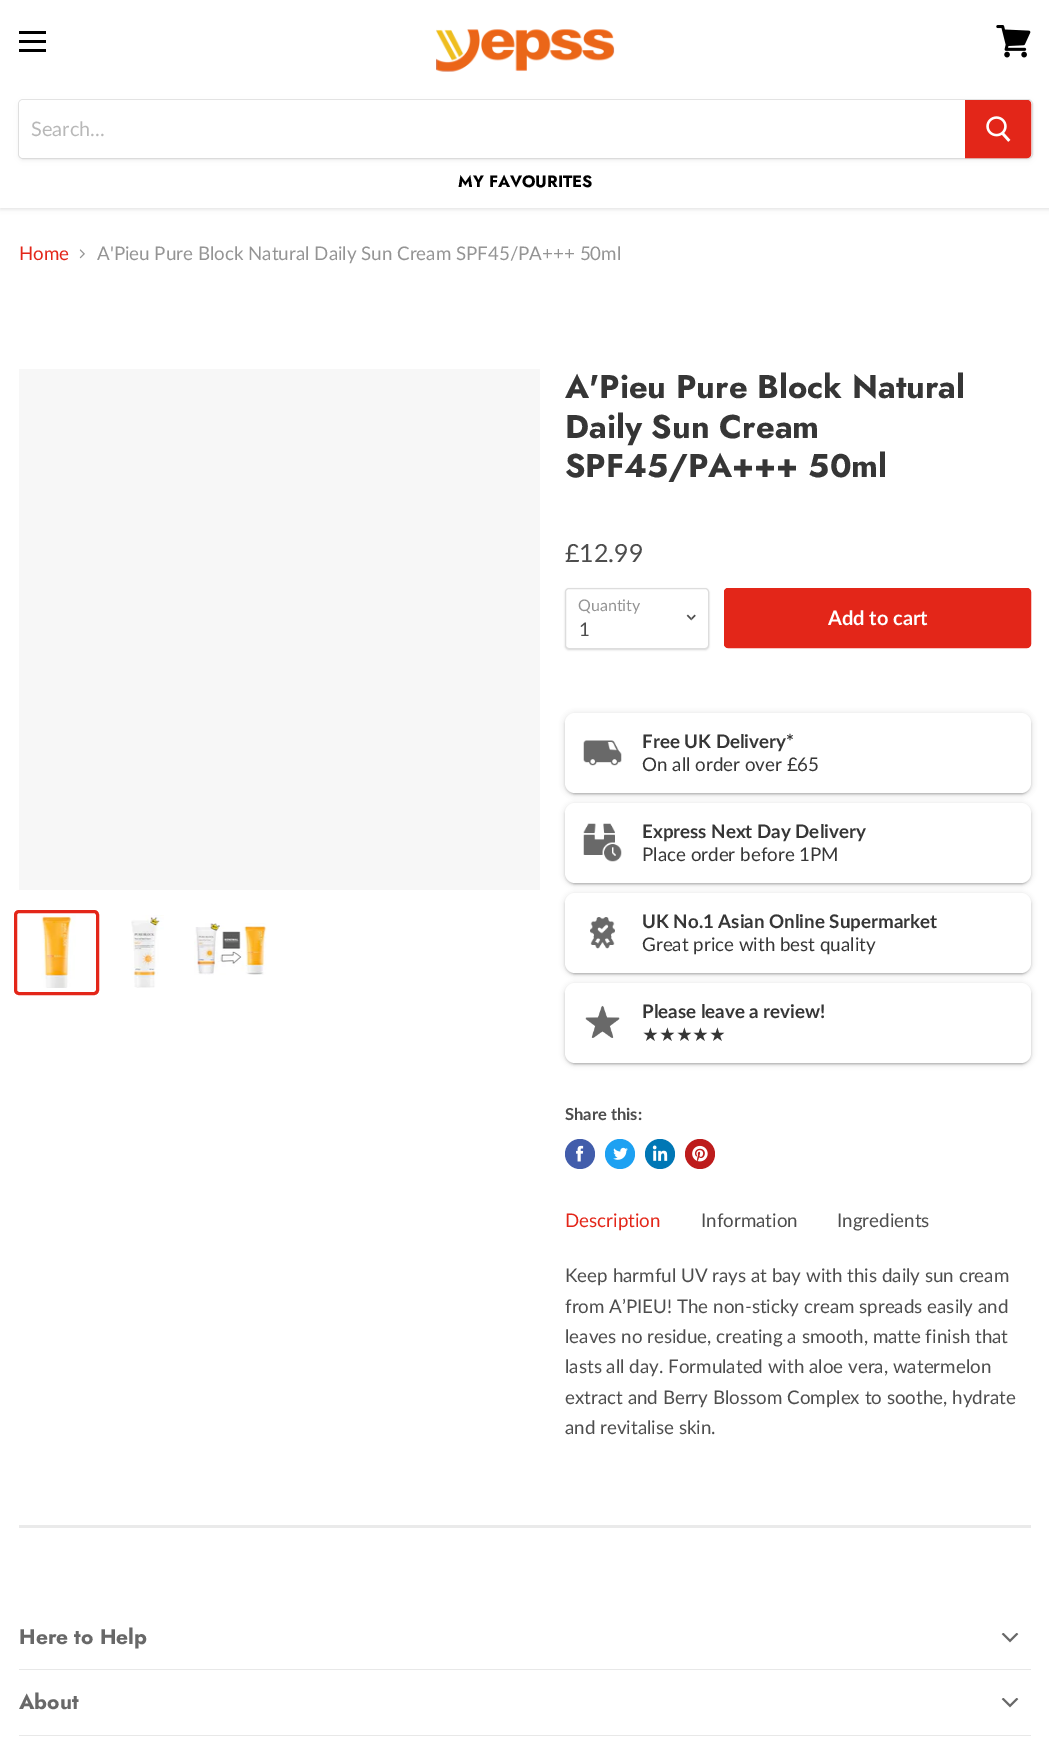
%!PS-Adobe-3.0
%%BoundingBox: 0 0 1049 1749
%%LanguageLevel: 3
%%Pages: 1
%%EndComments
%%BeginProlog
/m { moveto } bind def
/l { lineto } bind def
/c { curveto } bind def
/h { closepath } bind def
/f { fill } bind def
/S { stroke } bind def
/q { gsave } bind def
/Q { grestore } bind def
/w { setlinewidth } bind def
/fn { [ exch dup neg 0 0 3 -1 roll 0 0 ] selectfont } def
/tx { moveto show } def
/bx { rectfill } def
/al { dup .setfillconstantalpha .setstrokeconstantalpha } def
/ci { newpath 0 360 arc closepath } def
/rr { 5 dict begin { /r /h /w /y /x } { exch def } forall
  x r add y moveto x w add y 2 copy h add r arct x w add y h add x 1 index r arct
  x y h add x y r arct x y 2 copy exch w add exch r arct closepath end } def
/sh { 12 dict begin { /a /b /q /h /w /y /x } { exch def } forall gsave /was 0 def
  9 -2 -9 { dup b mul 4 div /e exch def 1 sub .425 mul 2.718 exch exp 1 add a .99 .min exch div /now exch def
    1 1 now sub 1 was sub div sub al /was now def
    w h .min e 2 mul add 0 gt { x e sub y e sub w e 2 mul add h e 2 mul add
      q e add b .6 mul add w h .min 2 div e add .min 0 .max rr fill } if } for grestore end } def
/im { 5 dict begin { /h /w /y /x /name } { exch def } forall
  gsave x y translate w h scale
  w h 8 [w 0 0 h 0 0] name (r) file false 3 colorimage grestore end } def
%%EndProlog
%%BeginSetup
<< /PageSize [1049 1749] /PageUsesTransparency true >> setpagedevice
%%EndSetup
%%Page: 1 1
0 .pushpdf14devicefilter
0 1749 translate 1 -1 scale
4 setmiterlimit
1 setgray
0 0 1049 1749 bx
0.498 setgray
0 1 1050 208 0 2.5 0.25 sh
1 setgray
0 0 1049 208 bx
0 setgray
19 31 27 3 bx
19 40 27 3 bx
19 49 27 3 bx
(image0.raw) 996 25 35 33 im
(image1.raw) 436 29 179 43 im
0.498 setgray
18 101 1015 60 5 2 0.11 sh
0.2 al
18.5 99.5 1014 59 4.5 rr S
1 al
1 setgray
23 100 m 965 100 l 965 158 l 23 158 l 21 158 19 156 19 154 c 19 104 l 19 102 21 100 23 100 c h f
/Lato-Regular 20 fn
0.722 setgray
(Search...) 31 136 tx
0.89 0.149 0.098 setrgbcolor
965.5 100.5 m 1027 100.5 l 1029 100.5 1030.5 102 1030.5 104 c 1030.5 154 l 1030.5 156 1029 157.5 1027 157.5 c 965.5 157.5 l h q f Q
S
(image2.raw) 986 116 25 26 im
/Jost-Bold 16.5 fn
0 setgray
(MY FAVOURITES) 458 187 tx
/Lato-Regular 18.75 fn
0.89 0.149 0.098 setrgbcolor
(Home) 19 260 tx
(image3.raw) 79 249 6 10 im
0.58 setgray
(A'Pieu Pure Block Natural Daily Sun Cream SPF45/PA+++ 50ml) 97 260 tx
0.969 setgray
19 369 521 521 bx
0.89 0.149 0.098 setrgbcolor
3 w
15.5 911.5 82 82 3.5 rr S
(image4.raw) 41 915 35 73 im
(image5.raw) 131 915 33 73 im
(image6.raw) 194 923 73 52 im
/Jost-Bold 32.75 fn
0.212 setgray
(A'Pieu Pure Block Natural) 565 398 tx
(Daily Sun Cream) 565 438 tx
(SPF45/PA+++ 50ml) 565 477 tx
/Lato-Regular 25 fn
0.302 setgray
(£12.99) 565 562 tx
0 setgray
565 589 144 61 4 1 0.15 sh
1 setgray
565.5 588.5 143 60 3.5 rr q f Q
0.867 setgray
1 w
S
/Lato-Regular 16 fn
0.58 setgray
(Quantity) 578 611 tx
(image7.raw) 686 614 10 7 im
/Lato-Regular 18.75 fn
0.302 setgray
(1) 579 636 tx
0.89 0.149 0.098 setrgbcolor
724.5 588.5 306 59 3.5 rr q f Q
S
/Lato-Bold 20 fn
1 setgray
(Add to cart) 828 625 tx
0.2 setgray
565 714 466 80 10 3 0.2 sh
568 719 461 75 8 0.5 0.12 sh
565 715 466 80 10 1 0.14 sh
1 setgray
565 713 466 80 10 rr f
(image8.raw) 583 740 39 26 im
/Lato-Bold 18.75 fn
0.212 setgray
(Free UK Delivery*) 642 748 tx
/Lato-Regular 18.75 fn
(On all order over £65) 642 771 tx
0 setgray
565 804 466 80 10 3 0.16 sh
0.2 setgray
568 809 461 75 8 0.5 0.12 sh
565 805 466 80 10 1 0.14 sh
1 setgray
565 803 466 80 10 rr f
(image9.raw) 583 823 39 39 im
/Lato-Bold 18.75 fn
0.212 setgray
(Express Next Day Delivery) 642 838 tx
/Lato-Regular 18.75 fn
(Place order before 1PM) 642 861 tx
0 setgray
565 894 466 80 10 3 0.16 sh
0.2 setgray
568 899 461 75 8 0.5 0.12 sh
565 895 466 80 10 1 0.14 sh
1 setgray
565 893 466 80 10 rr f
(image10.raw) 590 917 25 32 im
/Lato-Bold 18.75 fn
0.212 setgray
(UK No.1 Asian Online Supermarket) 642 928 tx
/Lato-Regular 18.75 fn
(Great price with best quality) 642 951 tx
0 setgray
565 984 466 80 10 3 0.16 sh
0.2 setgray
568 989 461 75 8 0.5 0.12 sh
565 985 466 80 10 1 0.14 sh
1 setgray
565 983 466 80 10 rr f
(image11.raw) 585 1005 35 33 im
/Lato-Bold 18.75 fn
0.212 setgray
(Please leave a review!) 642 1018 tx
/DejaVuSans-Regular 18.75 fn
(★★★★★) 642 1041 tx
/Lato-Bold 16.5 fn
0.302 setgray
(Share this:) 565 1120 tx
0.259 0.365 0.671 setrgbcolor
580 1154 15 ci f
(image12.raw) 576 1145 8 17 im
0.114 0.631 0.949 setrgbcolor
620 1154 15 ci f
(image13.raw) 613 1147 15 13 im
0 0.467 0.71 setrgbcolor
660 1154 15 ci f
(image14.raw) 652 1145 16 16 im
0.741 0.11 0.11 setrgbcolor
700 1154 15 ci f
(image15.raw) 692 1145 16 17 im
/Lato-Regular 18.75 fn
0.89 0.149 0.098 setrgbcolor
(Description) 565 1227 tx
0.302 setgray
(Information) 701 1227 tx
(Ingredients) 837 1227 tx
(Keep harmful UV rays at bay with this daily sun cream) 565 1282 tx
(from A’PIEU! The non-sticky cream spreads easily and) 565 1313 tx
(leaves no residue, creating a smooth, matte finish that) 565 1343 tx
(lasts all day. Formulated with aloe vera, watermelon) 565 1373 tx
(extract and Berry Blossom Complex to soothe, hydrate) 565 1404 tx
(and revitalise skin.) 565 1434 tx
0.16 al
0.498 setgray
19 1525 1012 3 bx
1 al
0.91 setgray
19 1669 1012 1 bx
/Jost-Bold 21 fn
0.408 setgray
(Here to Help) 19 1644 tx
(image16.raw) 1001 1633 18 10 im
0.91 setgray
19 1735 1012 1 bx
0.408 setgray
(About) 19 1709 tx
(image16.raw) 1001 1698 18 10 im
.poppdf14devicefilter showpage
%%EOF
